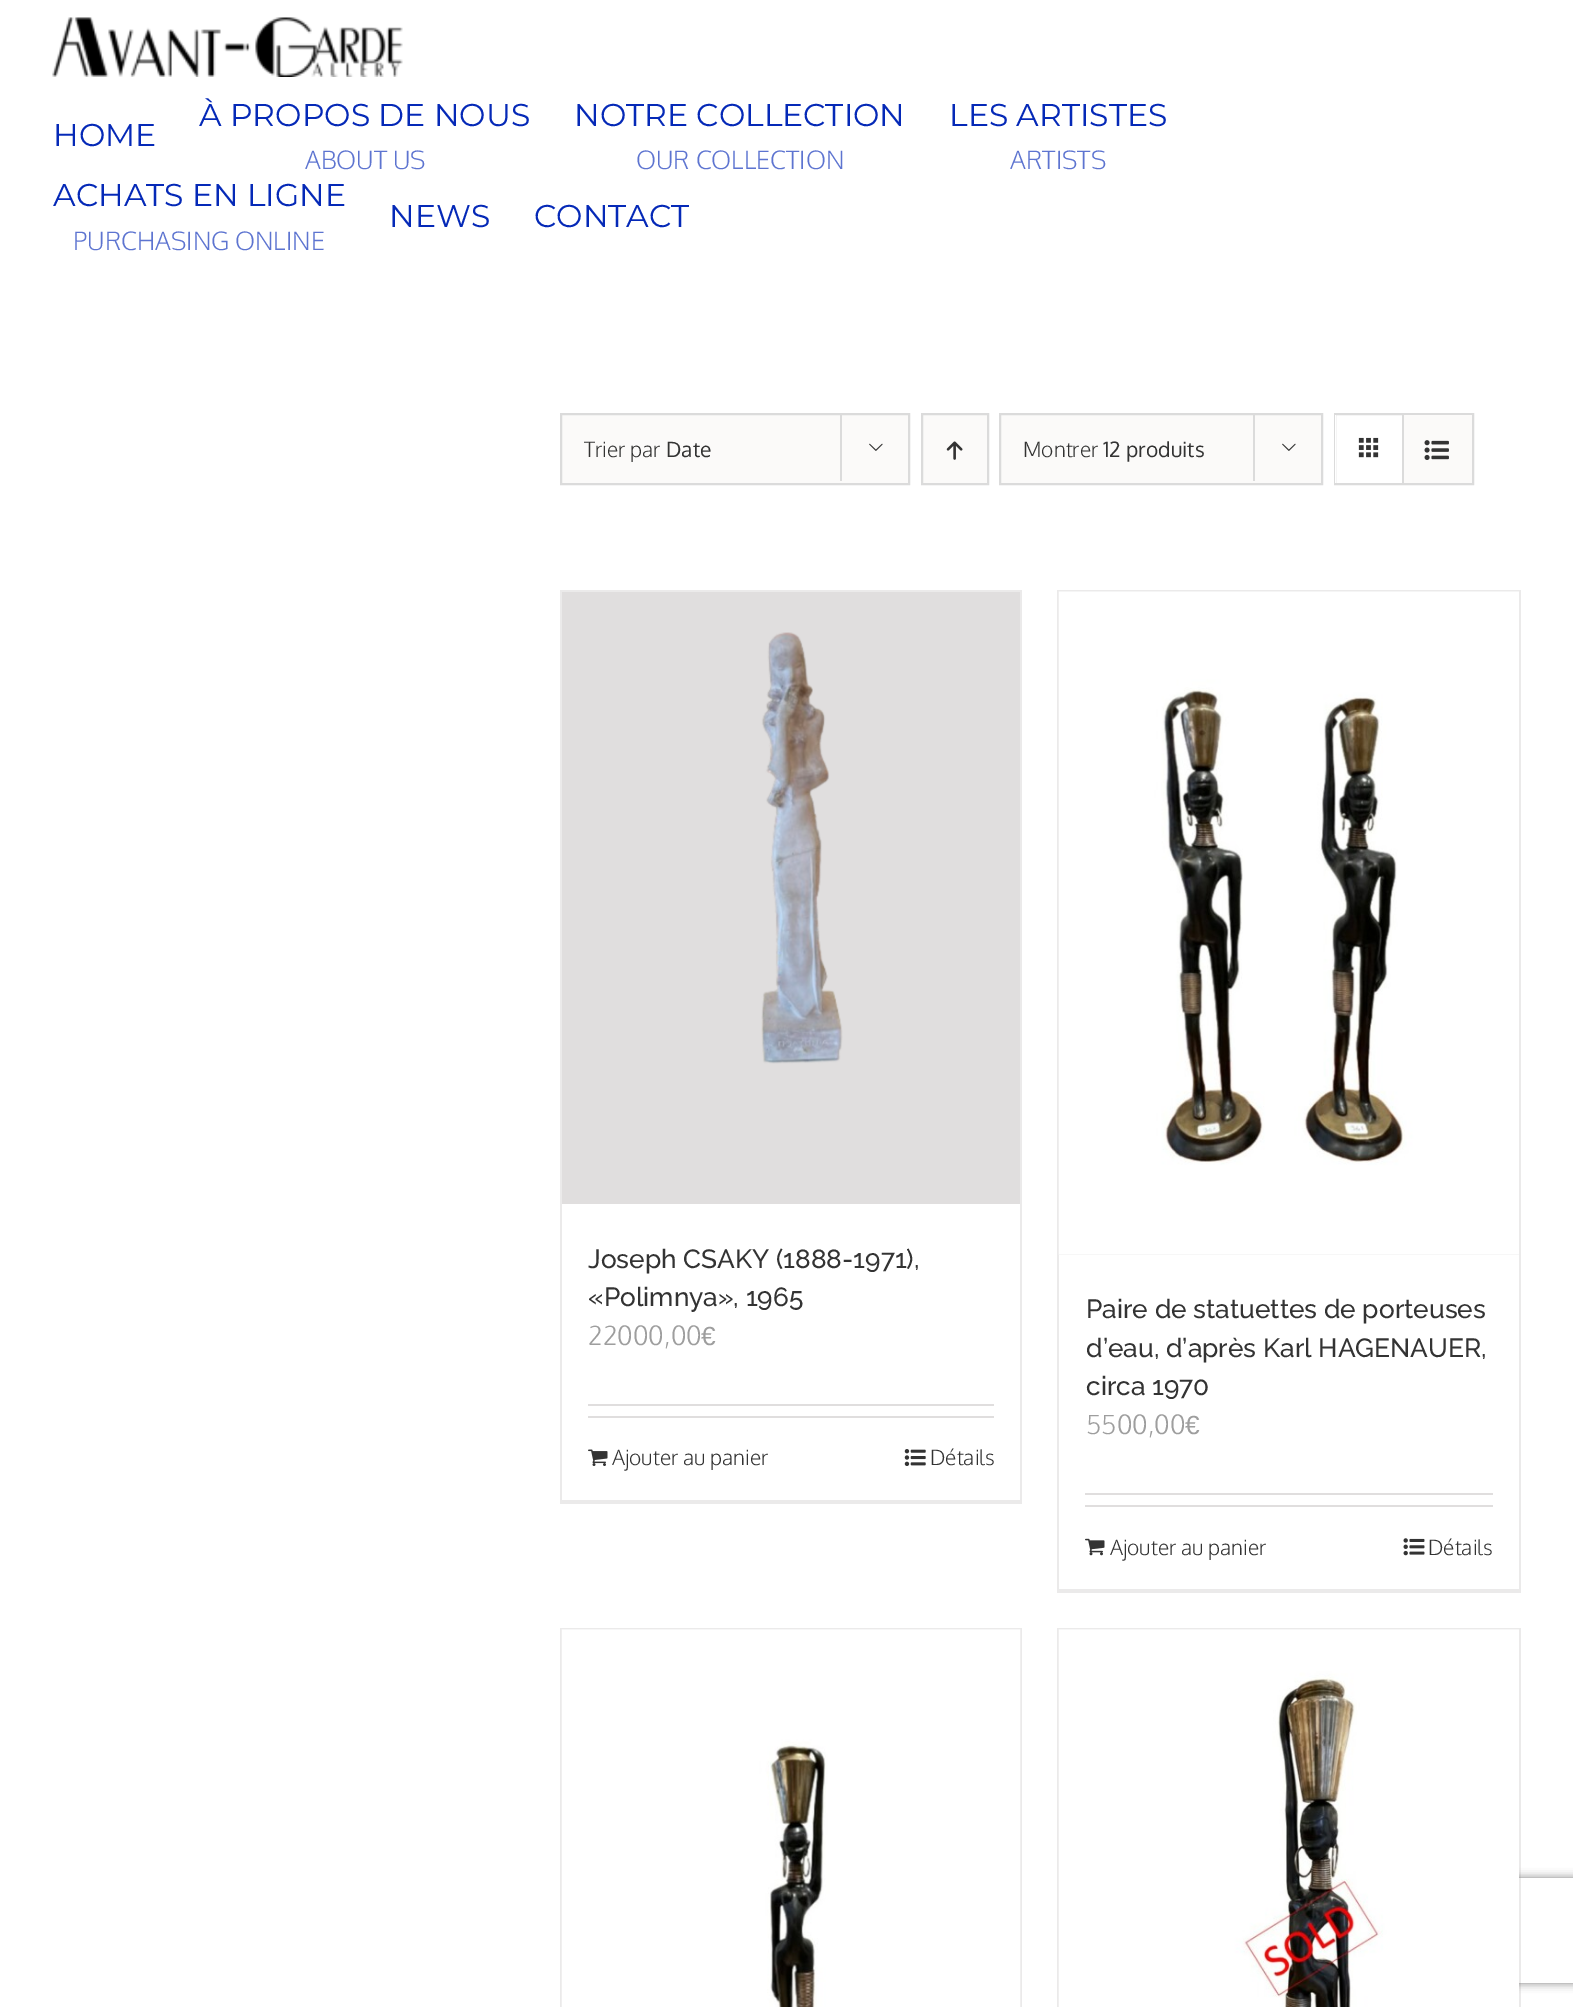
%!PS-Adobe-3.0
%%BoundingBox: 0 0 1573 2007
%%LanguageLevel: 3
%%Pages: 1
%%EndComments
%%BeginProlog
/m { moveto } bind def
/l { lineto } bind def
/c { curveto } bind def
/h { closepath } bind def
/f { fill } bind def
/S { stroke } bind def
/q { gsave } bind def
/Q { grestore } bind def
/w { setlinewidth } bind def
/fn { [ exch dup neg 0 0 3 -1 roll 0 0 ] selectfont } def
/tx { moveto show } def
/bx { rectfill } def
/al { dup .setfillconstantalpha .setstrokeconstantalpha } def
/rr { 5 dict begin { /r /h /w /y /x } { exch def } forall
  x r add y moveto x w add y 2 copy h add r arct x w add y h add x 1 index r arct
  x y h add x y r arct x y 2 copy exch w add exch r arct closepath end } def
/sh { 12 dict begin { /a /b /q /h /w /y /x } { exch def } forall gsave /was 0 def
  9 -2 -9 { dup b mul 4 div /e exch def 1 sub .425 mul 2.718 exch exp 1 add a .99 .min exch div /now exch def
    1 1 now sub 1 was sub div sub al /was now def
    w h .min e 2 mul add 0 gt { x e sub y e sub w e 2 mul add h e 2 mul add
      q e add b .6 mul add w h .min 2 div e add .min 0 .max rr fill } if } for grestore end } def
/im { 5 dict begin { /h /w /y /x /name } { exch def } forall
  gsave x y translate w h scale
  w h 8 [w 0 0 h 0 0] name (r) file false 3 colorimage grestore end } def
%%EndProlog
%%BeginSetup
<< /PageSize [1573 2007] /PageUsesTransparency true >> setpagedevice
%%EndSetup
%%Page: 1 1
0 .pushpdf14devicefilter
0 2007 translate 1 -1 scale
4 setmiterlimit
1 setgray
0 0 1573 2007 bx
(image0.raw) 52 17 351 60 im
/Montserrat-Thin 31.5 fn
0.02 0.161 0.718 setrgbcolor
(HOME) 53 146 tx
(À PROPOS DE NOUS) 199 126 tx
/Oxygen-Light 25.25 fn
0.365 0.455 0.816 setrgbcolor
(ABOUT US) 305 169 tx
/Montserrat-Thin 31.5 fn
0.02 0.161 0.718 setrgbcolor
(NOTRE COLLECTION) 574 126 tx
/Oxygen-Light 25.25 fn
0.365 0.455 0.816 setrgbcolor
(OUR COLLECTION) 636 169 tx
/Montserrat-Thin 31.5 fn
0.02 0.161 0.718 setrgbcolor
(LES ARTISTES) 949 126 tx
/Oxygen-Light 25.25 fn
0.365 0.455 0.816 setrgbcolor
(ARTISTS) 1010 169 tx
/Montserrat-Thin 31.5 fn
0.02 0.161 0.718 setrgbcolor
(ACHATS EN LIGNE) 53 206 tx
/Oxygen-Light 25.25 fn
0.365 0.455 0.816 setrgbcolor
(PURCHASING ONLINE) 73 250 tx
/Montserrat-Thin 31.5 fn
0.02 0.161 0.718 setrgbcolor
(NEWS) 389 227 tx
(CONTACT) 534 227 tx
0.984 0.98 0.976 setrgbcolor
561 414 m 909 414 l 909 484 l 561 484 l h q f Q
0.859 setgray
2 w
S
/Oxygen-Light 21 fn
0.2 setgray
(Trier par) 584 457 tx
/Oxygen-Regular 21 fn
(Date) 666 457 tx
0.859 setgray
840 413 2 68 bx
(image1.raw) 869 443 14 8 im
0.984 0.98 0.976 setrgbcolor
922 414 m 988 414 l 988 484 l 922 484 l h q f Q
0.859 setgray
S
(image2.raw) 946 441 17 19 im
0.984 0.98 0.976 setrgbcolor
1000 414 m 1322 414 l 1322 484 l 1000 484 l h q f Q
0.859 setgray
S
/Oxygen-Light 21 fn
0.2 setgray
(Montrer) 1023 457 tx
/Oxygen-Regular 21 fn
(12 produits) 1103 457 tx
0.859 setgray
1253 413 2 68 bx
(image1.raw) 1282 443 14 8 im
1335 414 138 70 rectstroke
1 setgray
1335 415 1 68 bx
0.859 setgray
1402 415 2 68 bx
(image3.raw) 1358 437 21 21 im
0.984 0.98 0.976 setrgbcolor
1404 415 68 68 bx
(image4.raw) 1424 440 25 20 im
0.922 0.918 0.918 setrgbcolor
560 590 462 2 bx
1020 590 2 913 bx
560 1500 462 4 bx
560 590 2 913 bx
0.878 0.871 0.871 setrgbcolor
562 592 458 612 bx
(image5.raw) 761 632 82 432 im
/Raleway-Thin 26.25 fn
0.2 setgray
(Joseph CSAKY \(1888-1971\),) 588 1268 tx
(«Polimnya», 1965) 588 1306 tx
/Oxygen-Light 26.25 fn
0.62 setgray
(22000,00) 588 1345 tx
/LiberationSans-Regular 26.25 fn
(€) 701 1345 tx
0.878 0.871 0.871 setrgbcolor
588 1404 406 2 bx
588 1416 406 2 bx
(image6.raw) 588 1449 20 17 im
/Oxygen-Light 21 fn
0.2 setgray
(Ajouter au panier) 612 1465 tx
(image7.raw) 904 1449 22 17 im
(Détails) 930 1465 tx
0.922 0.918 0.918 setrgbcolor
1057 590 464 2 bx
1519 590 2 1003 bx
1057 1589 464 4 bx
1057 590 2 1003 bx
(image8.raw) 1058 591 461 664 im
/Raleway-Thin 26.25 fn
0.2 setgray
(Paire de statuettes de porteuses) 1086 1318 tx
(d’eau, d’après Karl HAGENAUER,) 1086 1357 tx
(circa 1970) 1086 1395 tx
/Oxygen-Light 26.25 fn
0.62 setgray
(5500,00) 1086 1434 tx
/LiberationSans-Regular 26.25 fn
(€) 1185 1434 tx
0.878 0.871 0.871 setrgbcolor
1085 1493 408 2 bx
1085 1505 408 2 bx
(image9.raw) 1085 1538 20 18 im
/Oxygen-Light 21 fn
0.2 setgray
(Ajouter au panier) 1110 1555 tx
(image10.raw) 1403 1538 22 18 im
(Détails) 1428 1555 tx
0.922 0.918 0.918 setrgbcolor
560 1628 462 2 bx
1020 1628 2 379 bx
560 1628 2 379 bx
(image11.raw) 561 1629 460 378 im
1057 1628 464 2 bx
1519 1628 2 379 bx
1057 1628 2 379 bx
q
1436 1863 m 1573 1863 l 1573 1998 l 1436 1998 l h 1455 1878 m 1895 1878 l 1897 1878 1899 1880 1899 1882 c 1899 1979 l 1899 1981 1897 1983 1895 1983 c 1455 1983 l 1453 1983 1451 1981 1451 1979 c 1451 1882 l 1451 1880 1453 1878 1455 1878 c h eoclip newpath
0.502 setgray
1451 1878 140 105 4 4.5 1 sh
Q
(image12.raw) 1058 1629 461 378 im
.poppdf14devicefilter showpage
%%EOF
